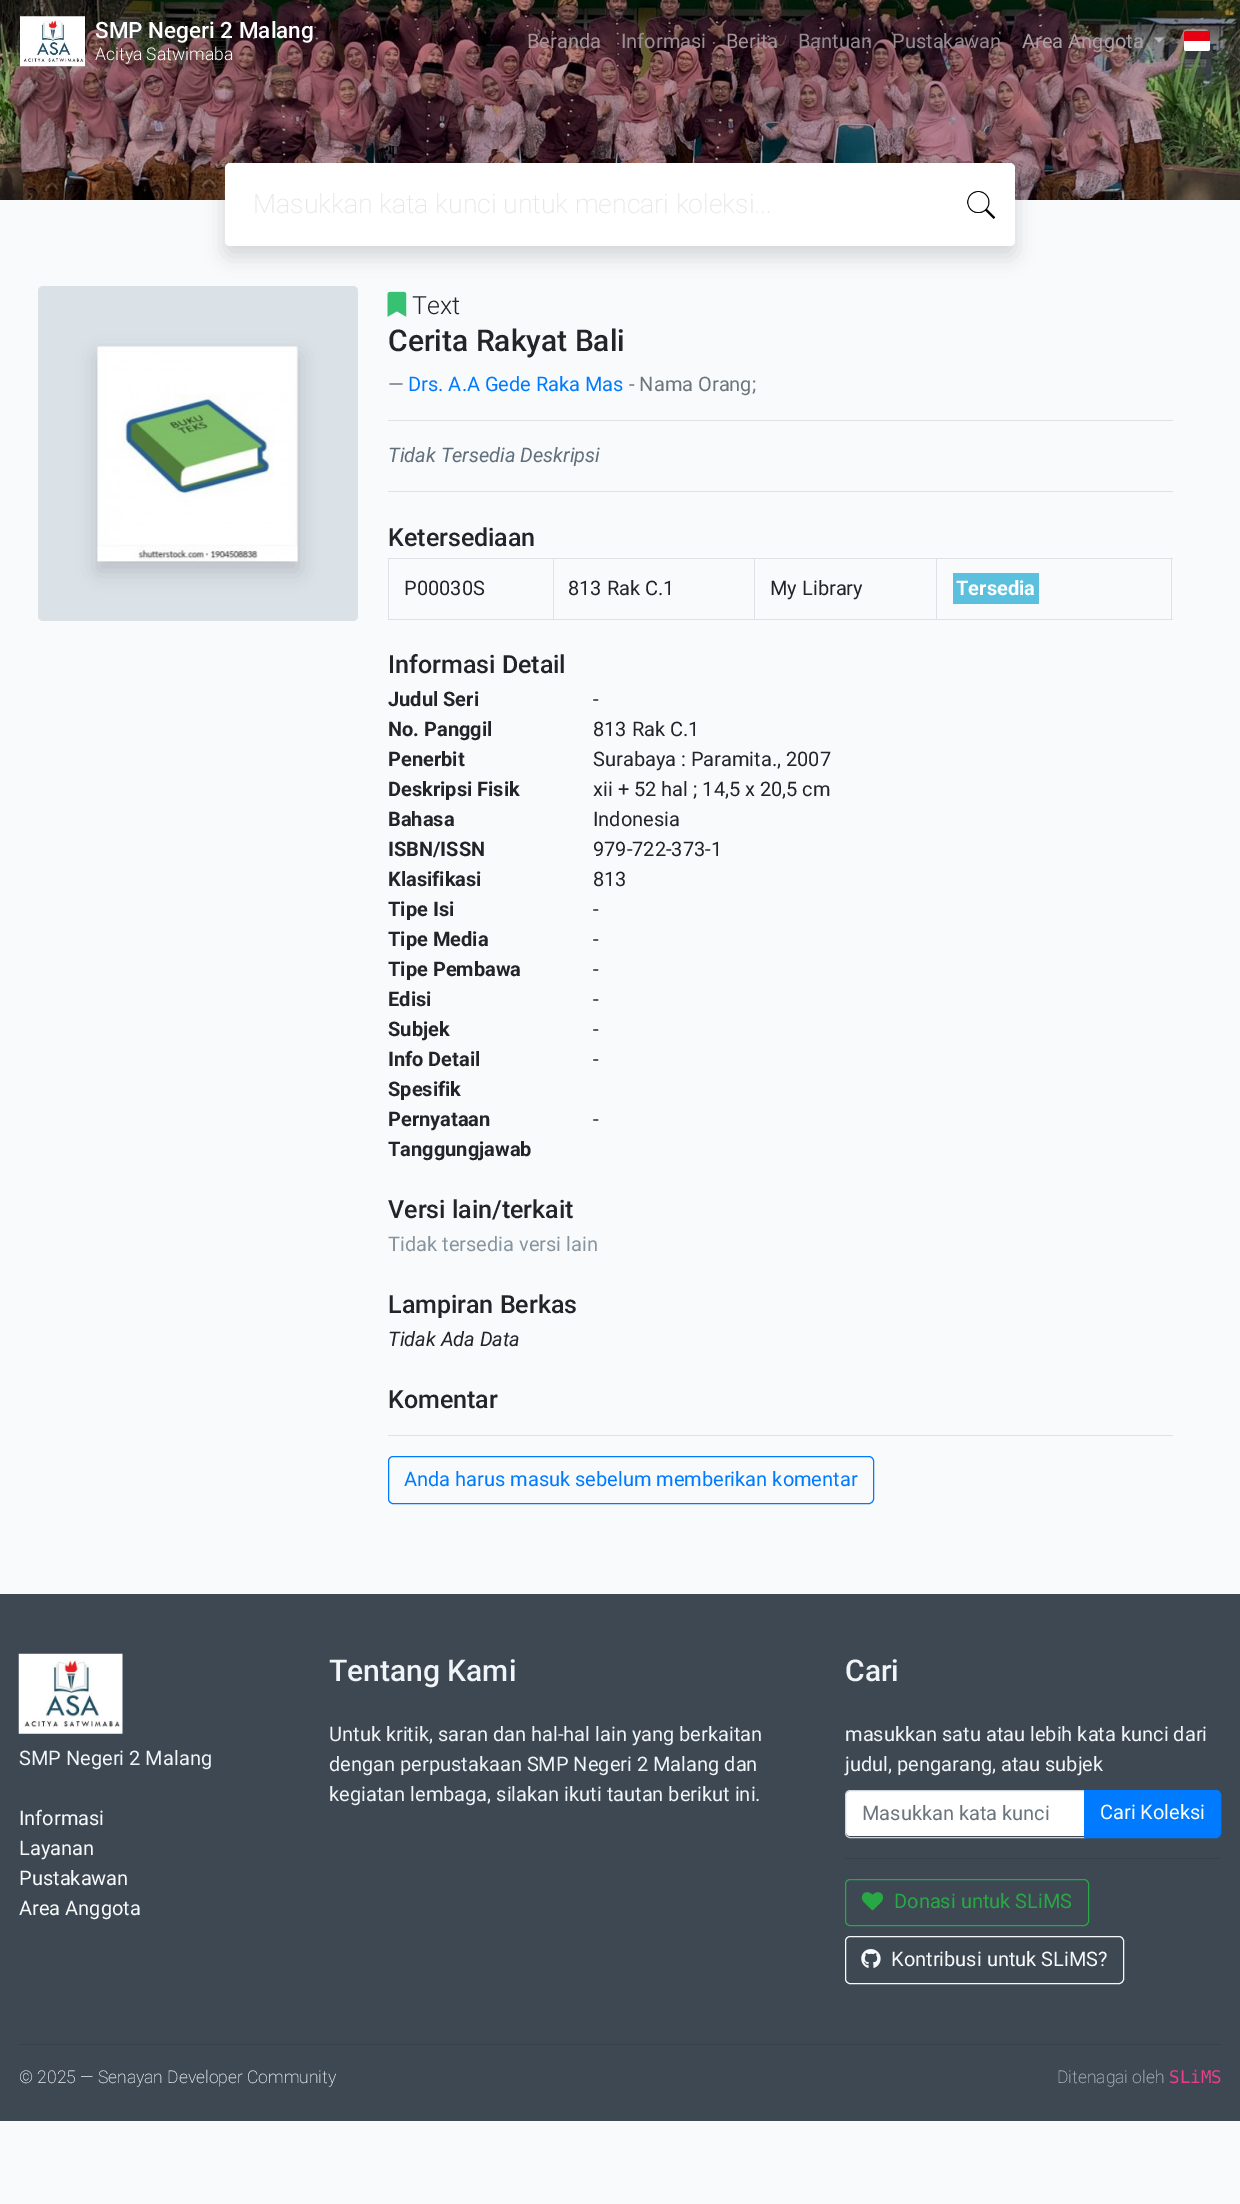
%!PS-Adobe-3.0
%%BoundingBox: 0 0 1240 2204
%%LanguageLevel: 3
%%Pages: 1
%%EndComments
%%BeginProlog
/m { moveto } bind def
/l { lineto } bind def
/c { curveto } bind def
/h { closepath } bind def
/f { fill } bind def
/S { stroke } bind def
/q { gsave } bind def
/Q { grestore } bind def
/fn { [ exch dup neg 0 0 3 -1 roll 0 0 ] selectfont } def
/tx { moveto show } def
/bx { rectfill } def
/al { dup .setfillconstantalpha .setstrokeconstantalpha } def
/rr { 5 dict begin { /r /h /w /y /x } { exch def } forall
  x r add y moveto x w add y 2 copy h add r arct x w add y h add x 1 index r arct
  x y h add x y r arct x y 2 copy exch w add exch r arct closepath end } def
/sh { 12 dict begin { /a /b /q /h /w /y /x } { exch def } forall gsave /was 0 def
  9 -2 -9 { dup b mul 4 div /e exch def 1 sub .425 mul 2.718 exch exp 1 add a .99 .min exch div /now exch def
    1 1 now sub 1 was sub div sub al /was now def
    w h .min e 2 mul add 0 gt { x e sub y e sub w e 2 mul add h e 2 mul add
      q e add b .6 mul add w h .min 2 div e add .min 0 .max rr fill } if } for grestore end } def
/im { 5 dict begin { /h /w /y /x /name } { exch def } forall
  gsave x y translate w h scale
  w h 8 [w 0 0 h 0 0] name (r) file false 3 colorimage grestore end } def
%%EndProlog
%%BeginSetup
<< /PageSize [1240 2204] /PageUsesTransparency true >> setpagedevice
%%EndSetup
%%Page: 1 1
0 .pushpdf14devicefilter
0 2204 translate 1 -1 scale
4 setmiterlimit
0.973 0.98 0.988 setrgbcolor
0 0 1240 2204 bx
(image0.raw) 0 0 1240 200 im
(image1.raw) 20 16 65 51 im
/Roboto-Medium 22.5 fn
1 setgray
(SMP Negeri 2 Malang) 95 38 tx
/Roboto-Light 17.5 fn
(Acitya Satwimaba) 95 60 tx
/Roboto-Regular 20 fn
0.643 0.58 0.596 setrgbcolor
(Beranda) 527 48 tx
0.612 0.561 0.573 setrgbcolor
(Informasi) 621 48 tx
0.643 0.58 0.596 setrgbcolor
(Berita) 726 48 tx
0.584 0.545 0.565 setrgbcolor
(Bantuan) 798 48 tx
(Pustakawan) 892 48 tx
0.671 0.624 0.635 setrgbcolor
(Area Anggota) 1022 48 tx
0.5 al
1 setgray
1154 37.5 m 1164 37.5 l 1159 42.5 l h f
1 al
0.906 0 0.067 setrgbcolor
1186.5 31 m 1207.5 31 l 1209 31 1210 32 1210 33.5 c 1210 42 l 1184 42 l 1184 33.5 l 1184 32 1185 31 1186.5 31 c h f
1 setgray
1184 41 m 1210 41 l 1210 48.5 l 1210 50 1209 51 1207.5 51 c 1186.5 51 l 1185 51 1184 50 1184 48.5 c h f
0.855 0.882 0.906 setrgbcolor
38 286 320 335 5 rr f
0 setgray
225 173 790 83 5 10 0.15 sh
1 setgray
225 163 790 83 5 rr f
(image2.raw) 967 191 29 28 im
/Roboto-ExtraLight 26.7 fn
0.902 setgray
(Masukkan kata kunci untuk mencari koleksi...) 253 213 tx
0 setgray
98 356 200 215 0 10 0.15 sh
(image3.raw) 97 346 201 216 im
(image4.raw) 387 291 20 26 im
/Roboto-Light 25 fn
0.129 0.145 0.161 setrgbcolor
(Text) 412 314 tx
/Roboto-Medium 30 fn
(Cerita Rakyat Bali) 388 351 tx
/Roboto-Regular 20 fn
0.424 0.459 0.49 setrgbcolor
(—) 388 391 tx
0 0.482 1 setrgbcolor
(Drs. A.A Gede Raka Mas) 408 391 tx
0.424 0.459 0.49 setrgbcolor
(- Nama Orang;) 629 391 tx
0.875 0.882 0.89 setrgbcolor
388 420 785 1 bx
/Roboto-Italic 20 fn
0.376 0.435 0.482 setrgbcolor
(Tidak Tersedia Deskripsi) 388 462 tx
0.875 0.882 0.89 setrgbcolor
388 491 785 1 bx
/Roboto-Medium 25 fn
0.129 0.145 0.161 setrgbcolor
(Ketersediaan) 388 546 tx
0.871 0.886 0.902 setrgbcolor
388 558 785 1 bx
1171 558 1 62 bx
388 619 785 1 bx
388 558 1 62 bx
/Roboto-Regular 20 fn
0.129 0.145 0.161 setrgbcolor
(P00030S) 404 595 tx
0.871 0.886 0.902 setrgbcolor
553 558 1 62 bx
0.129 0.145 0.161 setrgbcolor
(813 Rak C.1) 568 595 tx
0.871 0.886 0.902 setrgbcolor
754 558 1 62 bx
0.129 0.145 0.161 setrgbcolor
(My Library) 770 595 tx
0.871 0.886 0.902 setrgbcolor
936 558 1 62 bx
0.357 0.753 0.871 setrgbcolor
953 573 86 31 bx
/Roboto-Bold 20 fn
1 setgray
(Tersedia) 956 595 tx
/Roboto-Medium 25 fn
0.129 0.145 0.161 setrgbcolor
(Informasi Detail) 388 673 tx
/Roboto-Bold 20 fn
(Judul Seri) 388 706 tx
/Roboto-Regular 20 fn
(-) 593 706 tx
/Roboto-Bold 20 fn
(No. Panggil) 388 736 tx
/Roboto-Regular 20 fn
(813 Rak C.1) 593 736 tx
/Roboto-Bold 20 fn
(Penerbit) 388 766 tx
/Roboto-Regular 20 fn
(Surabaya : Paramita., 2007) 593 766 tx
/Roboto-Bold 20 fn
(Deskripsi Fisik) 388 796 tx
/Roboto-Regular 20 fn
(xii + 52 hal ; 14,5 x 20,5 cm) 593 796 tx
/Roboto-Bold 20 fn
(Bahasa) 388 826 tx
/Roboto-Regular 20 fn
(Indonesia) 593 826 tx
/Roboto-Bold 20 fn
(ISBN/ISSN) 388 856 tx
/Roboto-Regular 20 fn
(979-722-373-1) 593 856 tx
/Roboto-Bold 20 fn
(Klasifikasi) 388 886 tx
/Roboto-Regular 20 fn
(813) 593 886 tx
/Roboto-Bold 20 fn
(Tipe Isi) 388 916 tx
/Roboto-Regular 20 fn
(-) 593 916 tx
/Roboto-Bold 20 fn
(Tipe Media) 388 946 tx
/Roboto-Regular 20 fn
(-) 593 946 tx
/Roboto-Bold 20 fn
(Tipe Pembawa) 388 976 tx
/Roboto-Regular 20 fn
(-) 593 976 tx
/Roboto-Bold 20 fn
(Edisi) 388 1006 tx
/Roboto-Regular 20 fn
(-) 593 1006 tx
/Roboto-Bold 20 fn
(Subjek) 388 1036 tx
/Roboto-Regular 20 fn
(-) 593 1036 tx
/Roboto-Bold 20 fn
(Info Detail) 388 1066 tx
(Spesifik) 388 1096 tx
/Roboto-Regular 20 fn
(-) 593 1066 tx
/Roboto-Bold 20 fn
(Pernyataan) 388 1126 tx
(Tanggungjawab) 388 1156 tx
/Roboto-Regular 20 fn
(-) 593 1126 tx
/Roboto-Medium 25 fn
(Versi lain/terkait) 388 1218 tx
/Roboto-Regular 20 fn
0.529 0.584 0.631 setrgbcolor
(Tidak tersedia versi lain) 388 1251 tx
/Roboto-Medium 25 fn
0.129 0.145 0.161 setrgbcolor
(Lampiran Berkas) 388 1313 tx
/Roboto-Italic 20 fn
(Tidak Ada Data) 388 1346 tx
/Roboto-Medium 25 fn
(Komentar) 388 1408 tx
0.875 0.882 0.89 setrgbcolor
388 1435 785 1 bx
0 0.482 1 setrgbcolor
388.5 1456.5 485 47 4.5 rr S
/Roboto-Regular 20 fn
(Anda harus masuk sebelum memberikan komentar) 404 1486 tx
0.239 0.282 0.322 setrgbcolor
0 1594 1240 527 bx
(image5.raw) 18 1653 105 81 im
0.945 0.961 0.973 setrgbcolor
(SMP Negeri 2 Malang) 19 1765 tx
0.973 0.976 0.98 setrgbcolor
(Informasi) 19 1825 tx
(Layanan) 19 1855 tx
(Pustakawan) 19 1885 tx
(Area Anggota) 19 1915 tx
/Roboto-Medium 30 fn
0.945 0.961 0.973 setrgbcolor
(Tentang Kami) 329 1681 tx
/Roboto-Regular 20 fn
(Untuk kritik, saran dan hal-hal lain yang berkaitan) 329 1741 tx
(dengan perpustakaan SMP Negeri 2 Malang dan) 329 1771 tx
(kegiatan lembaga, silakan ikuti tautan berikut ini.) 329 1801 tx
/Roboto-Medium 30 fn
(Cari) 845 1681 tx
/Roboto-Regular 20 fn
(masukkan satu atau lebih kata kunci dari) 845 1741 tx
(judul, pengarang, atau subjek) 845 1771 tx
1 setgray
850 1791 m 1084 1791 l 1084 1836 l 850 1836 l 848 1836 846 1834 846 1832 c 846 1795 l 846 1793 848 1791 850 1791 c h f
0.808 0.831 0.855 setrgbcolor
850 1790.5 m 1084.5 1790.5 l 1084.5 1837.5 l 850 1837.5 l 847.5 1837.5 845.5 1835.5 845.5 1833 c 845.5 1795 l 845.5 1792.5 847.5 1790.5 850 1790.5 c h S
0.424 0.459 0.49 setrgbcolor
(Masukkan kata kunci) 862 1820 tx
0 0.482 1 setrgbcolor
1084.5 1790.5 m 1216 1790.5 l 1218.5 1790.5 1220.5 1792.5 1220.5 1795 c 1220.5 1833 l 1220.5 1835.5 1218.5 1837.5 1216 1837.5 c 1084.5 1837.5 l h q f Q
S
1 setgray
(Cari Koleksi) 1100 1819 tx
0.216 0.255 0.29 setrgbcolor
845 1858 376 1 bx
0.157 0.655 0.271 setrgbcolor
845.5 1879.5 243 46 4.5 rr S
(image6.raw) 861 1892 23 19 im
(Donasi untuk SLiMS) 894 1908 tx
0.973 0.976 0.98 setrgbcolor
845.5 1936.5 278 47 4.5 rr S
(image7.raw) 861 1949 20 19 im
(Kontribusi untuk SLiMS?) 891 1966 tx
0.216 0.255 0.29 setrgbcolor
19 2044 1202 1 bx
/Roboto-ExtraLight 17.5 fn
0.945 0.961 0.973 setrgbcolor
(© 2025 — Senayan Developer Community) 19 2083 tx
0.722 0.761 0.8 setrgbcolor
(Ditenagai oleh) 1057 2083 tx
/DejaVuSansMono-Regular 17.5 fn
0.91 0.243 0.549 setrgbcolor
(SLiMS) 1169 2083 tx
.poppdf14devicefilter showpage
%%EOF
